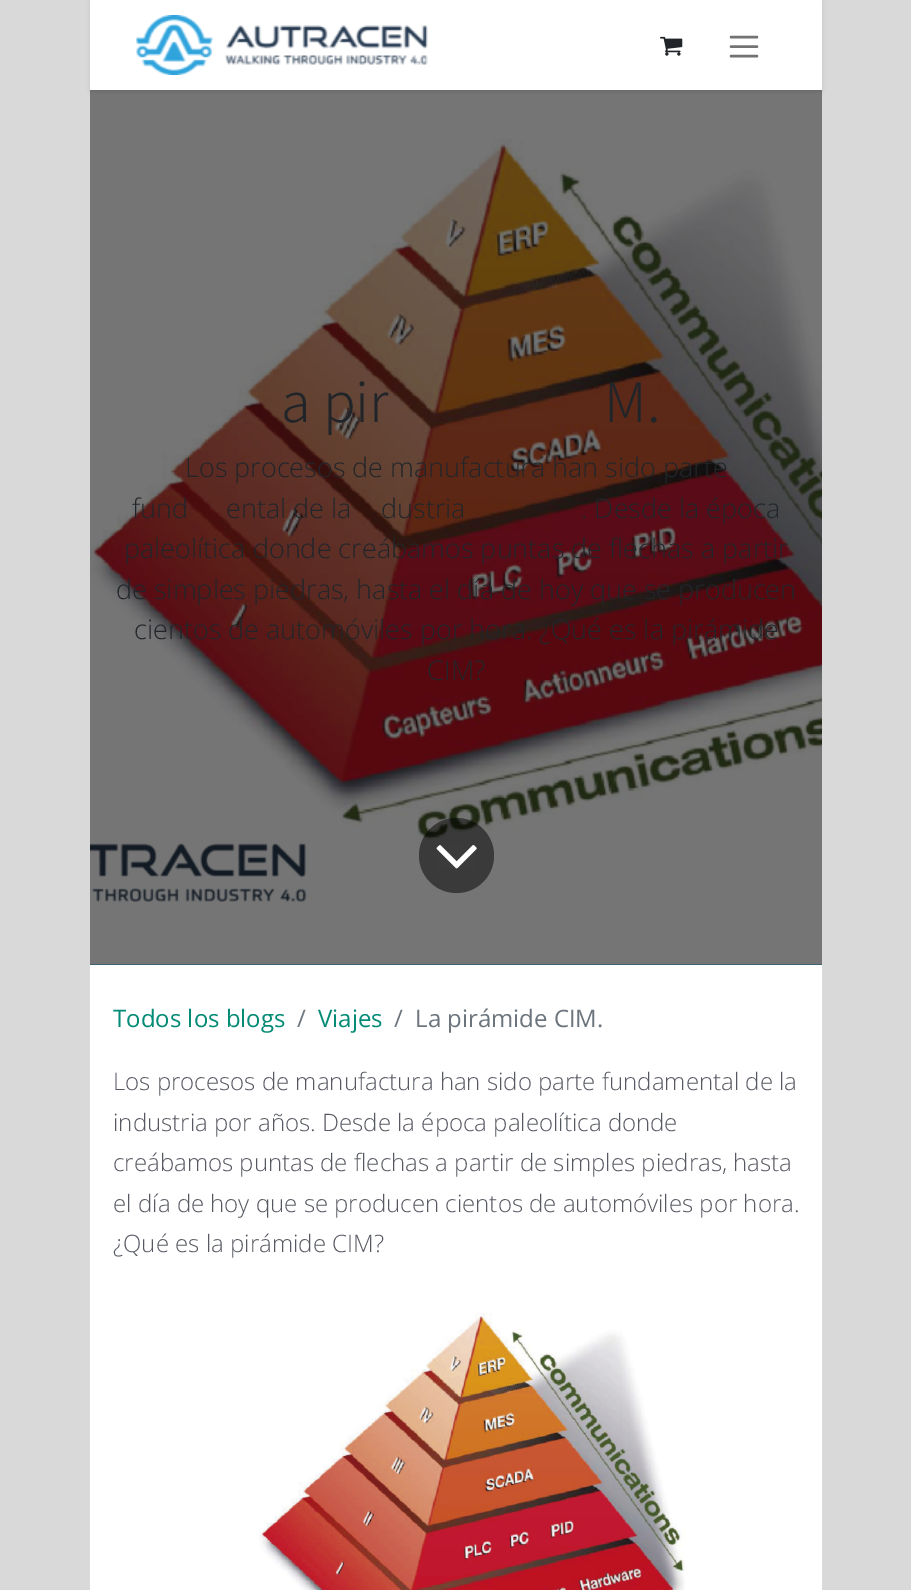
%!PS-Adobe-3.0
%%BoundingBox: 0 0 911 1590
%%LanguageLevel: 3
%%Pages: 1
%%EndComments
%%BeginProlog
/m { moveto } bind def
/l { lineto } bind def
/f { fill } bind def
/S { stroke } bind def
/w { setlinewidth } bind def
/fn { [ exch dup neg 0 0 3 -1 roll 0 0 ] selectfont } def
/tx { moveto show } def
/bx { rectfill } def
/al { dup .setfillconstantalpha .setstrokeconstantalpha } def
/ci { newpath 0 360 arc closepath } def
/rr { 5 dict begin { /r /h /w /y /x } { exch def } forall
  x r add y moveto x w add y 2 copy h add r arct x w add y h add x 1 index r arct
  x y h add x y r arct x y 2 copy exch w add exch r arct closepath end } def
/sh { 12 dict begin { /a /b /q /h /w /y /x } { exch def } forall gsave /was 0 def
  9 -2 -9 { dup b mul 4 div /e exch def 1 sub .425 mul 2.718 exch exp 1 add a .99 .min exch div /now exch def
    1 1 now sub 1 was sub div sub al /was now def
    w h .min e 2 mul add 0 gt { x e sub y e sub w e 2 mul add h e 2 mul add
      q e add b .6 mul add w h .min 2 div e add .min 0 .max rr fill } if } for grestore end } def
/im { 5 dict begin { /h /w /y /x /name } { exch def } forall
  gsave x y translate w h scale
  w h 8 [w 0 0 h 0 0] name (r) file false 3 colorimage grestore end } def
%%EndProlog
%%BeginSetup
<< /PageSize [911 1590] /PageUsesTransparency true >> setpagedevice
%%EndSetup
%%Page: 1 1
0 .pushpdf14devicefilter
0 1590 translate 1 -1 scale
4 setmiterlimit
0.851 setgray
0 0 911 1590 bx
0.004 0.306 0.439 setrgbcolor
90 964 732 1 bx
(image2.raw) 90 90 732 875 im
0 setgray
90 2 732 90 0 2 0.1 sh
1 setgray
90 0 732 90 bx
(image0.raw) 136 15 292 60 im
(image1.raw) 660 36 23 20 im
0.451 setgray
2.4 w
1 setlinecap
731 37 m 757 37 l 731 46.5 m 757 46.5 l 731 56 m 757 56 l S
1 setgray
90 965 732 625 bx
/Assistant-Light 60 fn
0.129 0.145 0.161 setrgbcolor
(a pir) 281 422 tx
(M.) 604 422 tx
/OpenSans-Light 27 fn
(Los procesos de manufactura han sido parte) 185 477 tx
(fund) 132 518 tx
(ental de la) 226 518 tx
(dustria) 381 518 tx
(. Desde la época) 581 518 tx
(paleolítica donde creábamos puntas de flechas a partir) 124 558 tx
(de simples piedras, hasta el día de hoy que se producen) 116 599 tx
(cientos de automóviles por hora. ¿Qué es la pirámide) 134 639 tx
(CIM?) 427 680 tx
0.5 al
0 setgray
456.5 855.5 37.5 ci f
1 al
(image3.raw) 436 845 41 24 im
/OpenSans-Regular 24 fn
0.016 0.545 0.463 setrgbcolor
(Todos los blogs) 113 1027 tx
0.424 0.459 0.49 setrgbcolor
(/) 297 1027 tx
0.016 0.545 0.463 setrgbcolor
(Viajes) 318 1027 tx
0.424 0.459 0.49 setrgbcolor
(/) 394 1027 tx
(La pirámide CIM.) 415 1027 tx
/OpenSans-Light 24 fn
0.337 0.349 0.38 setrgbcolor
(Los procesos de manufactura han sido parte fundamental de la) 113 1090 tx
(industria por años. Desde la época paleolítica donde) 113 1131 tx
(creábamos puntas de flechas a partir de simples piedras, hasta) 113 1171 tx
(el día de hoy que se producen cientos de automóviles por hora.) 113 1212 tx
(¿Qué es la pirámide CIM?) 113 1252 tx
(image4.raw) 259 1313 426 277 im
.poppdf14devicefilter showpage
%%EOF
